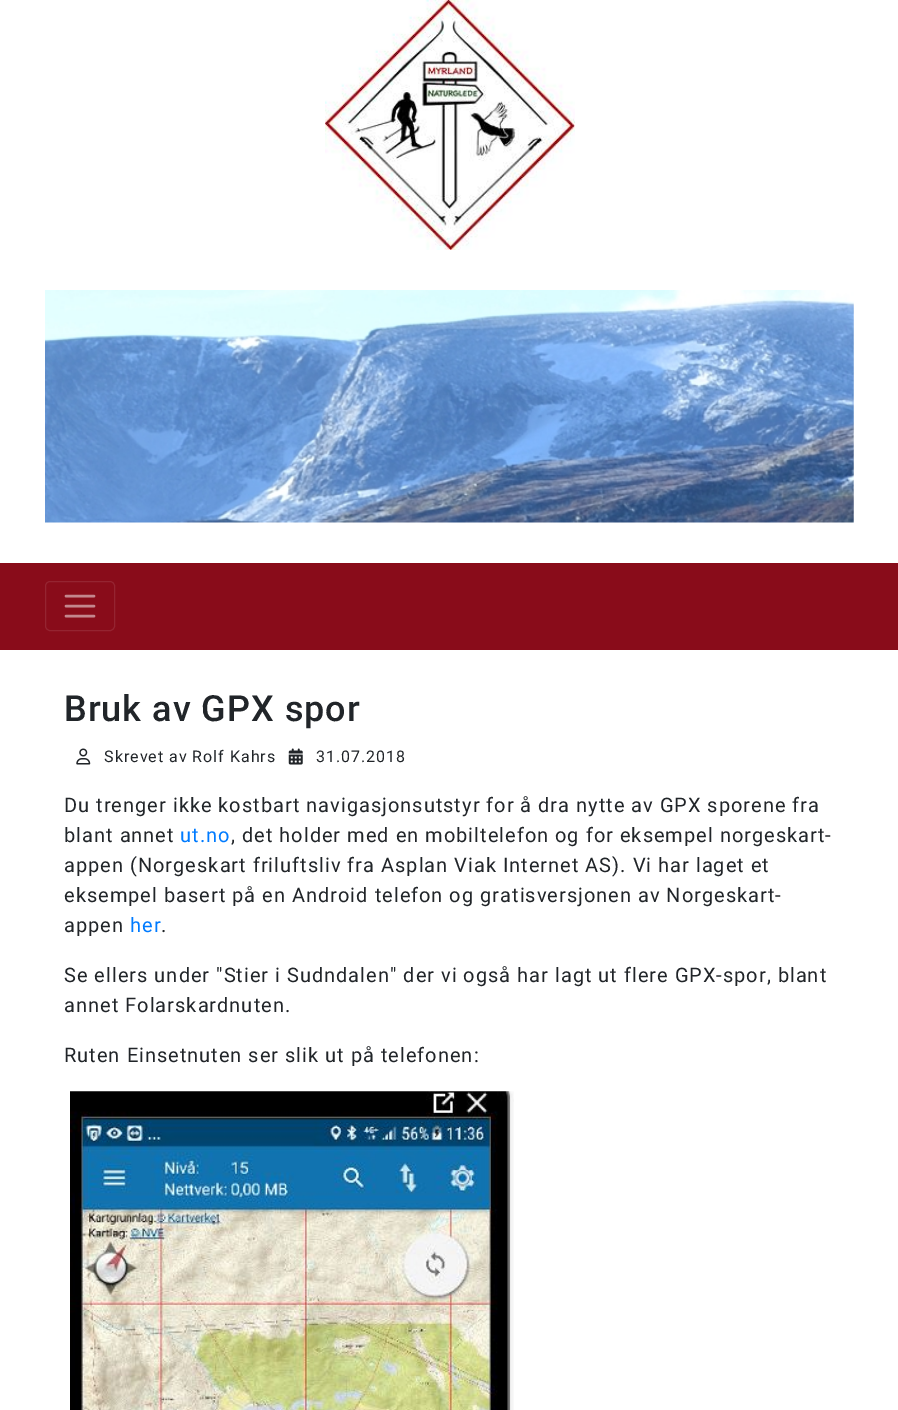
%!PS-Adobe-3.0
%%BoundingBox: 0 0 898 1410
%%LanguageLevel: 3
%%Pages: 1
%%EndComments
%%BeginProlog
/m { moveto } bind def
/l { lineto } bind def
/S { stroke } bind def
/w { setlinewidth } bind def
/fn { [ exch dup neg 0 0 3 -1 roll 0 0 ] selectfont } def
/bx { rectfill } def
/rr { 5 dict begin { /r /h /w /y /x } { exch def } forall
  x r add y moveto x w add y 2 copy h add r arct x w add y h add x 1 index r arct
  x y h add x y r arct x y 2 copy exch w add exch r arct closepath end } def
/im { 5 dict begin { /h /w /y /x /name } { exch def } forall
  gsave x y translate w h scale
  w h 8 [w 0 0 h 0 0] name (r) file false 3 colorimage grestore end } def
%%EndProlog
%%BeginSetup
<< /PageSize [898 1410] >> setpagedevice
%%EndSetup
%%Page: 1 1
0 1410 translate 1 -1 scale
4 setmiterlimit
1 setgray
0 0 898 1410 bx
(image0.raw) 325 0 250 250 im
(image1.raw) 45 290 809 233 im
0.537 0.047 0.102 setrgbcolor
0 563 898 87 bx
0.584 0.141 0.192 setrgbcolor
45.5 581.5 69 49 4.5 rr S
0.769 0.525 0.553 setrgbcolor
2.5 w
1 setlinecap
66 596 m 94 596 l 66 606 m 94 606 l 66 616 m 94 616 l S
/Roboto-Medium 36 fn
0.129 0.145 0.161 setrgbcolor
64 721 m 1 0 (Bruk av GPX spor) ashow
(image2.raw) 76 748 15 17 im
/Roboto-Regular 16 fn
104 762 m 1 0 (Skrevet av Rolf Kahrs) ashow
(image3.raw) 288 748 15 17 im
316 762 m 1 0 (31.07.2018) ashow
/Roboto-Regular 20 fn
64 812 m 1 0 (Du trenger ikke kostbart navigasjonsutstyr for å dra nytte av GPX sporene fra) ashow
64 842 m 1 0 (blant annet) ashow
0 0.482 1 setrgbcolor
180 842 m 1 0 (ut.no) ashow
0.129 0.145 0.161 setrgbcolor
231 842 m 1 0 (, det holder med en mobiltelefon og for eksempel norgeskart-) ashow
64 872 m 1 0 (appen \(Norgeskart friluftsliv fra Asplan Viak Internet AS\). Vi har laget et) ashow
64 902 m 1 0 (eksempel basert på en Android telefon og gratisversjonen av Norgeskart-) ashow
64 932 m 1 0 (appen) ashow
0 0.482 1 setrgbcolor
130 932 m 1 0 (her) ashow
0.129 0.145 0.161 setrgbcolor
161 932 m 1 0 (.) ashow
64 982 m 1 0 (Se ellers under "Stier i Sudndalen" der vi også har lagt ut flere GPX-spor, blant) ashow
64 1012 m 1 0 (annet Folarskardnuten.) ashow
64 1062 m 1 0 (Ruten Einsetnuten ser slik ut på telefonen:) ashow
(image4.raw) 70 1091 444 319 im
showpage
%%EOF
